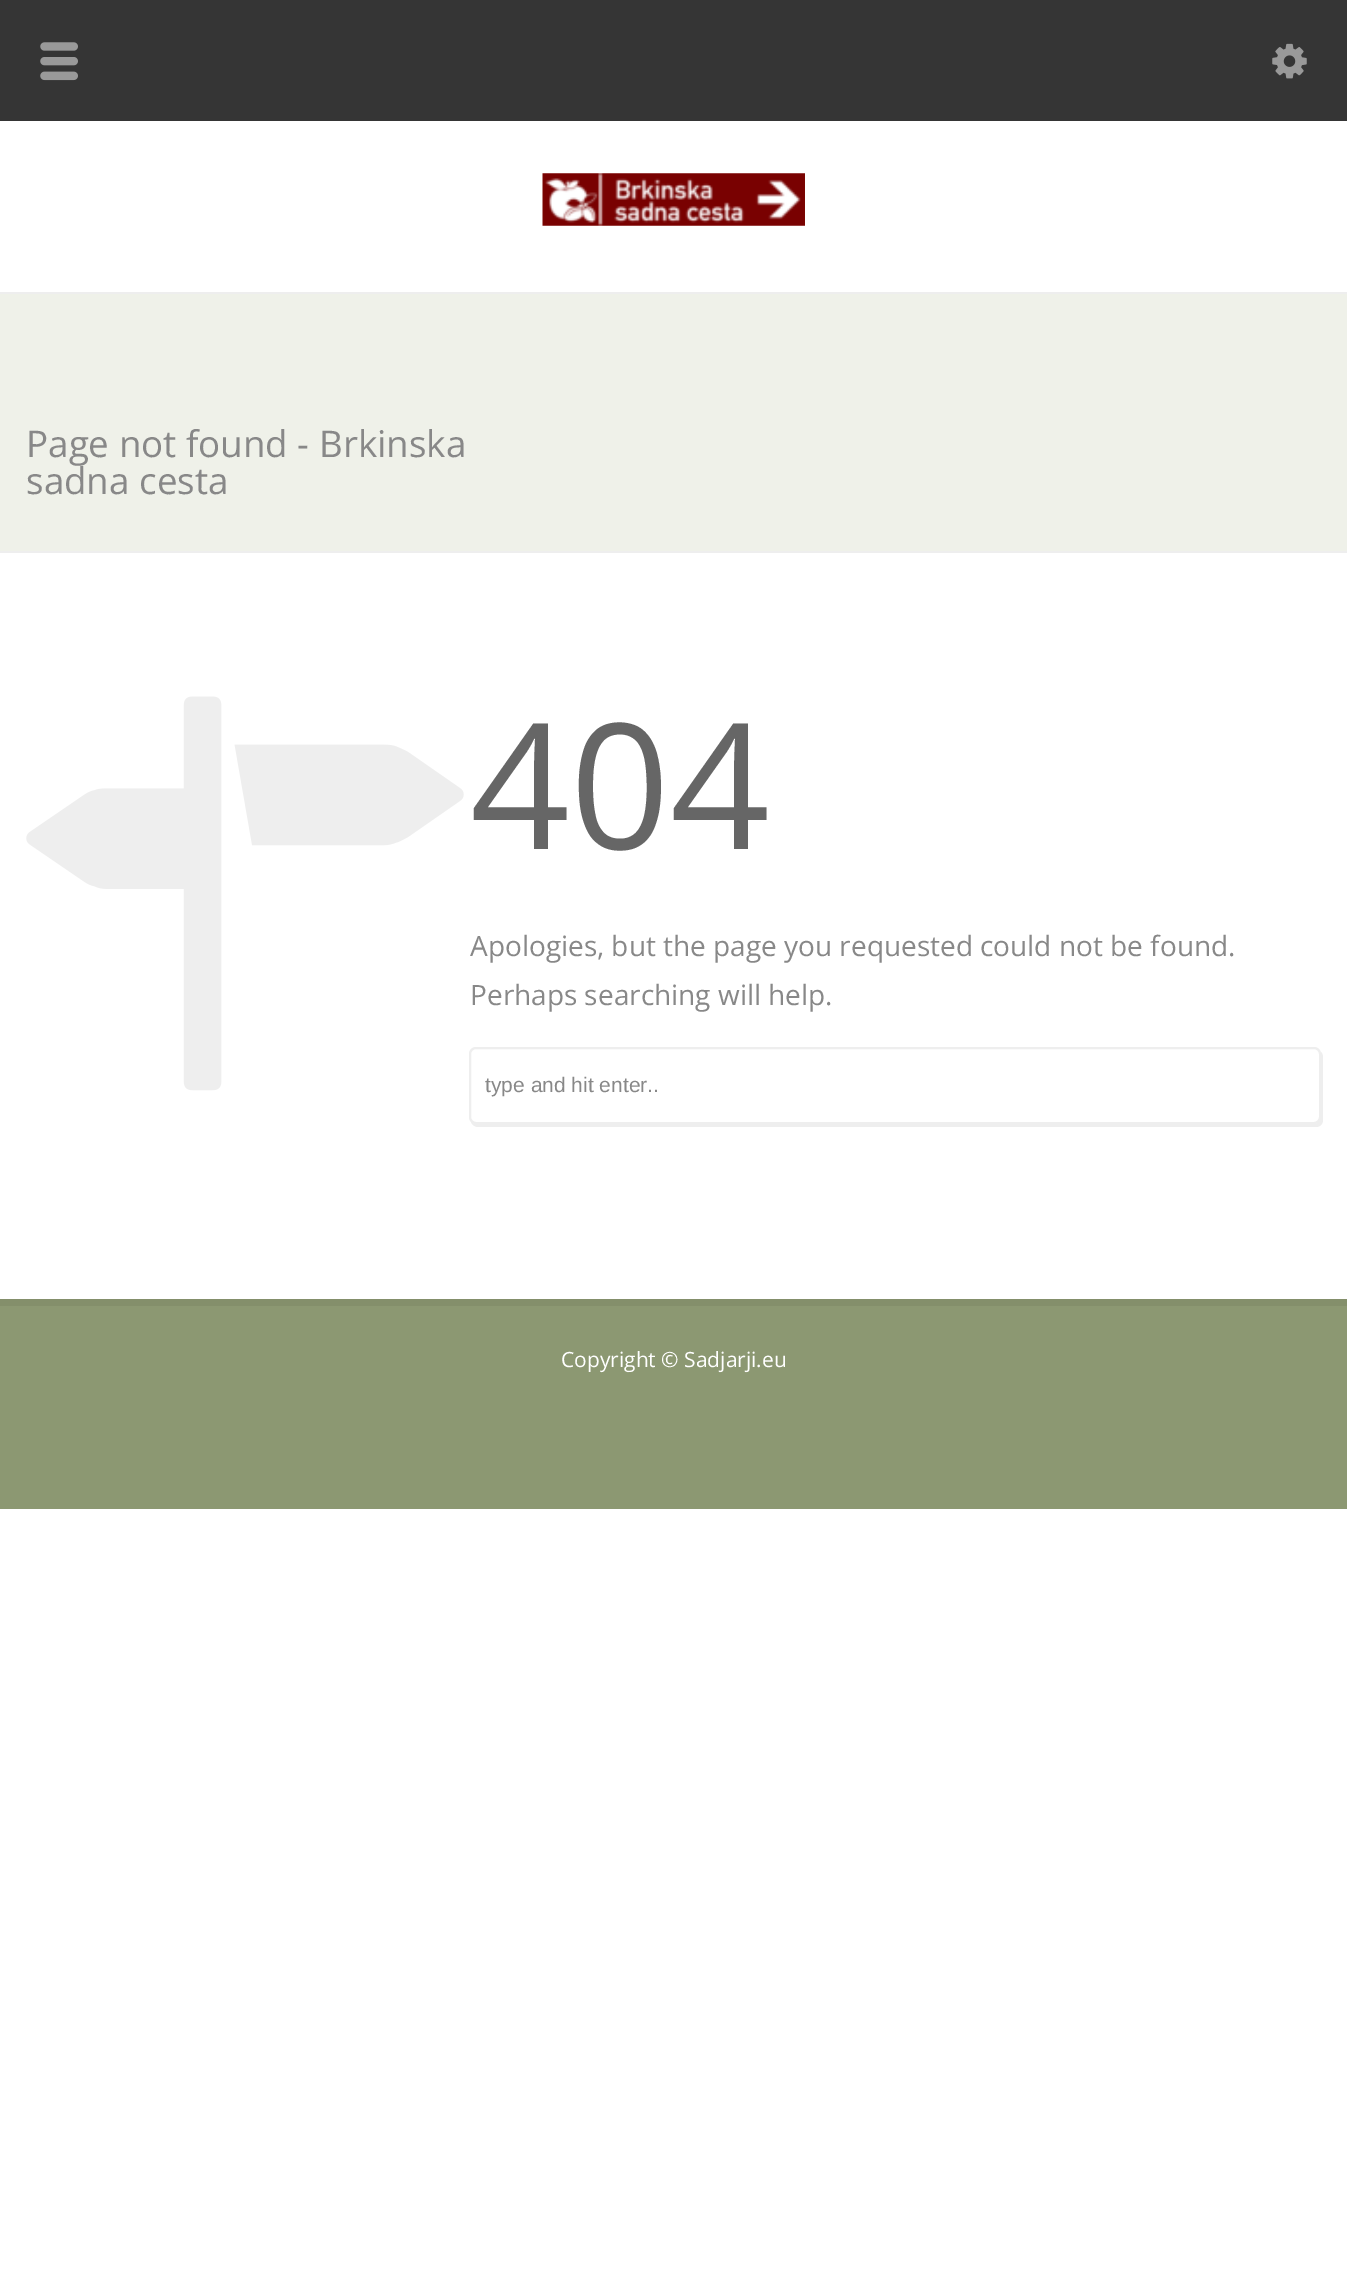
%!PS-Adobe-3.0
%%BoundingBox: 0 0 1347 2295
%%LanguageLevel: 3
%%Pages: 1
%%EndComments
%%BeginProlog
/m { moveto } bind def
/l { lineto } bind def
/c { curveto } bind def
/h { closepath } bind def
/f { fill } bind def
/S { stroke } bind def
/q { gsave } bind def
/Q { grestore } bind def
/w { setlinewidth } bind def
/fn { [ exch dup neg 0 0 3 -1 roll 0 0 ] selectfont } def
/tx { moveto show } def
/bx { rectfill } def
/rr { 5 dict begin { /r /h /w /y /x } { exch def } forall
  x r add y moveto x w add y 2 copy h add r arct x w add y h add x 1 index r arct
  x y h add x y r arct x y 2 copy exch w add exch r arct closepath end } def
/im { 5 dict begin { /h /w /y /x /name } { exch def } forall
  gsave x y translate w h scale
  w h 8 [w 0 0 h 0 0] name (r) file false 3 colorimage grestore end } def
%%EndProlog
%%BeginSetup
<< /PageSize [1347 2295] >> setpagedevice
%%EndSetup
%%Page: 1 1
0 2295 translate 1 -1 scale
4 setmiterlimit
1 setgray
0 0 1347 2295 bx
0.208 setgray
0 0 1347 121 bx
(image0.raw) 40 42 38 39 im
(image1.raw) 1272 43 35 36 im
(image2.raw) 542 173 263 53 im
0.937 0.945 0.914 setrgbcolor
0 294 1347 257 bx
0.933 setgray
0 292 1347 2 bx
0 551 1347 2 bx
/OpenSans-Regular 36.75 fn
0.533 setgray
(Page not found - Brkinska) 26 457 tx
(sadna cesta) 26 494 tx
(image3.raw) 26 696 438 395 im
/OpenSans-Regular 175 fn
0.4 setgray
(404) 470 849 tx
/OpenSans-Regular 28 fn
0.533 setgray
(Apologies, but the page you requested could not be found.) 470 956 tx
(Perhaps searching will help.) 470 1005 tx
0.933 setgray
471 1122 m 472 1125 475 1127 478 1127 c 1316 1127 l 1320 1127 1323 1124 1323 1120 c 1323 1057 l 1323 1055 1322 1053 1321 1052 c 1321 1116 l 1321 1120 1318 1124 1314 1124 c 476 1124 l 474 1124 472 1123 471 1122 c h f
1 setgray
470 1048 850 75 6 rr q f Q
0.933 setgray
2 w
S
/LiberationSans-Regular 21 fn
0.533 setgray
(type and hit enter..) 485 1092 tx
0.549 0.596 0.447 setrgbcolor
0 1306 1347 203 bx
0.518 0.561 0.42 setrgbcolor
0 1299 1347 7 bx
/OpenSans-Regular 21 fn
1 setgray
(Copyright © Sadjarji.eu) 561 1367 tx
showpage
%%EOF
